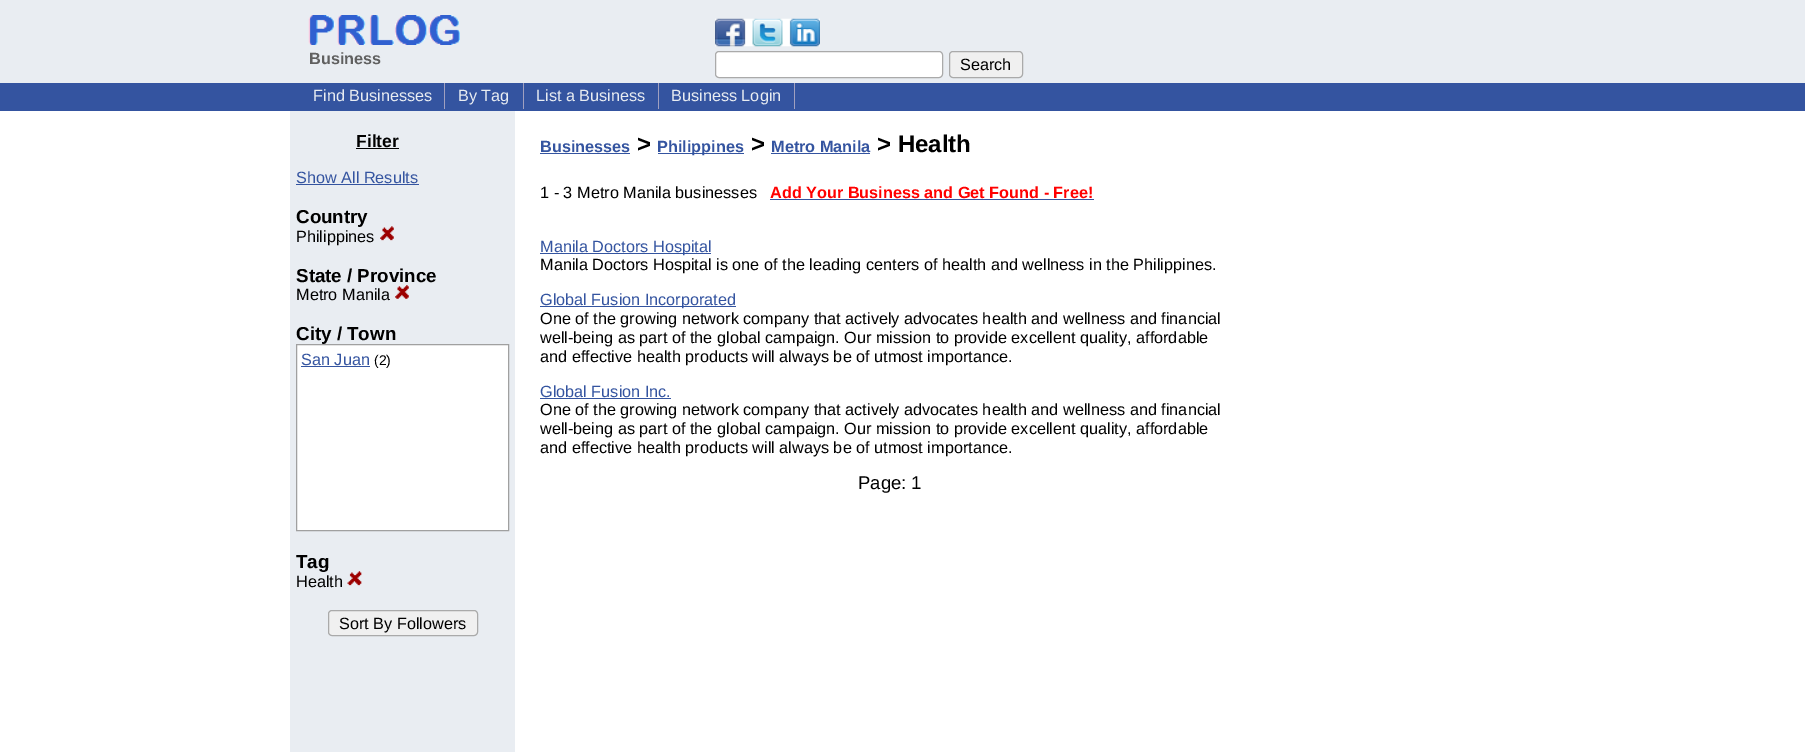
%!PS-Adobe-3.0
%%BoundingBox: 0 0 1805 752
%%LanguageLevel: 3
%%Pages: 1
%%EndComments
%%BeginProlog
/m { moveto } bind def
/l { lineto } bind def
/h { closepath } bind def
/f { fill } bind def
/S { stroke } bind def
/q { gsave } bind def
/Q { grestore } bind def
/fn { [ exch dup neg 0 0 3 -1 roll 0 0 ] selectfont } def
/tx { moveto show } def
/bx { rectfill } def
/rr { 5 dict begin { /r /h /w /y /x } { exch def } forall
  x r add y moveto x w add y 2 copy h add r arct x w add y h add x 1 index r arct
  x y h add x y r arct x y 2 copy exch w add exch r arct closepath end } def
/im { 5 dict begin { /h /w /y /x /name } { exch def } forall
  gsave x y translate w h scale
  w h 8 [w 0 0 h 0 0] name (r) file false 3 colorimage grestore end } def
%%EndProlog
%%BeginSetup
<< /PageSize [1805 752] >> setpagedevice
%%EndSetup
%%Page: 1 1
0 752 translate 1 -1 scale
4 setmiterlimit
1 setgray
0 0 1805 752 bx
0.914 0.929 0.949 setrgbcolor
0 0 1805 83 bx
(image0.raw) 308 15 152 30 im
/LiberationSans-Bold 16.25 fn
0.376 setgray
(Business) 309 64 tx
(image1.raw) 715 18 105 29 im
1 setgray
715.5 51.5 227 26 3.5 rr q f Q
0.667 setgray
S
0.941 setgray
949.5 51.5 73 26 3.5 rr q f Q
0.667 setgray
S
/LiberationSans-Regular 16.25 fn
0 setgray
(Search) 960 70 tx
0.204 0.329 0.627 setrgbcolor
0 83 1805 28 bx
0.627 0.627 0.753 setrgbcolor
444 83 1 26 bx
0.914 0.929 0.949 setrgbcolor
(Find Businesses) 313 101 tx
0.627 0.627 0.753 setrgbcolor
523 83 1 26 bx
0.914 0.929 0.949 setrgbcolor
(By Tag) 458 101 tx
0.627 0.627 0.753 setrgbcolor
658 83 1 26 bx
0.914 0.929 0.949 setrgbcolor
(List a Business) 536 101 tx
0.627 0.627 0.753 setrgbcolor
794 83 1 26 bx
0.914 0.929 0.949 setrgbcolor
(Business Login) 671 101 tx
290 111 225 641 bx
/LiberationSans-Bold 17.5 fn
0 setgray
(Filter) 356 147 tx
356 148 43 1 bx
/LiberationSans-Regular 16.25 fn
0.204 0.329 0.627 setrgbcolor
(Show All Results) 296 183 tx
296 184 123 1 bx
/LiberationSans-Bold 18.75 fn
0 setgray
(Country) 296 223 tx
/LiberationSans-Regular 16.25 fn
(Philippines) 296 242 tx
(image2.raw) 380 226 14 15 im
/LiberationSans-Bold 18.75 fn
(State / Province) 296 282 tx
/LiberationSans-Regular 16.25 fn
(Metro Manila) 296 300 tx
(image3.raw) 395 285 14 14 im
/LiberationSans-Bold 18.75 fn
(City / Town) 296 340 tx
1 setgray
296.5 344.5 m 508.5 344.5 l 508.5 530.5 l 296.5 530.5 l h q f Q
0.627 setgray
S
/LiberationSans-Regular 16.25 fn
0.204 0.329 0.627 setrgbcolor
(San Juan) 301 365 tx
301 366 69 1 bx
/LiberationSans-Regular 14 fn
0 setgray
(\(2\)) 374 365 tx
/LiberationSans-Bold 18.75 fn
(Tag) 296 568 tx
/LiberationSans-Regular 16.25 fn
(Health) 296 587 tx
(image4.raw) 347 571 15 15 im
0.941 setgray
328.5 610.5 149 25 3.5 rr q f Q
0.667 setgray
S
0 setgray
(Sort By Followers) 339 629 tx
/LiberationSans-Bold 16.25 fn
0.204 0.329 0.627 setrgbcolor
(Businesses) 540 152 tx
540 153 90 1 bx
/LiberationSans-Bold 24 fn
0 setgray
(>) 637 152 tx
0.204 0.329 0.627 setrgbcolor
658 153 86 1 bx
/LiberationSans-Bold 16.25 fn
(Philippines) 657 152 tx
/LiberationSans-Bold 24 fn
0 setgray
(>) 751 152 tx
/LiberationSans-Bold 16.25 fn
0.204 0.329 0.627 setrgbcolor
(Metro Manila) 771 152 tx
771 153 99 1 bx
/LiberationSans-Bold 24 fn
0 setgray
(> Health) 877 152 tx
/LiberationSans-Regular 16.25 fn
(1 - 3 Metro Manila businesses) 540 198 tx
/LiberationSans-Bold 16.25 fn
1 0 0 setrgbcolor
(Add Your Business and Get Found - Free!) 770 198 tx
0.204 0.329 0.627 setrgbcolor
770 199 324 1 bx
540 253 171 1 bx
/LiberationSans-Regular 16.25 fn
(Manila Doctors Hospital) 540 252 tx
0 setgray
(Manila Doctors Hospital is one of the leading centers of health and wellness in the Philippines.) 540 270 tx
0.204 0.329 0.627 setrgbcolor
540 306 196 1 bx
(Global Fusion Incorporated) 540 305 tx
0 setgray
(One of the growing network company that actively advocates health and wellness and financial) 540 324 tx
(well-being as part of the global campaign. Our mission to provide excellent quality, affordable) 540 343 tx
(and effective health products will always be of utmost importance.) 540 362 tx
0.204 0.329 0.627 setrgbcolor
(Global Fusion Inc.) 540 397 tx
540 398 131 1 bx
0 setgray
(One of the growing network company that actively advocates health and wellness and financial) 540 415 tx
(well-being as part of the global campaign. Our mission to provide excellent quality, affordable) 540 434 tx
(and effective health products will always be of utmost importance.) 540 453 tx
/LiberationSans-Regular 18.5 fn
(Page: 1) 858 489 tx
showpage
%%EOF
